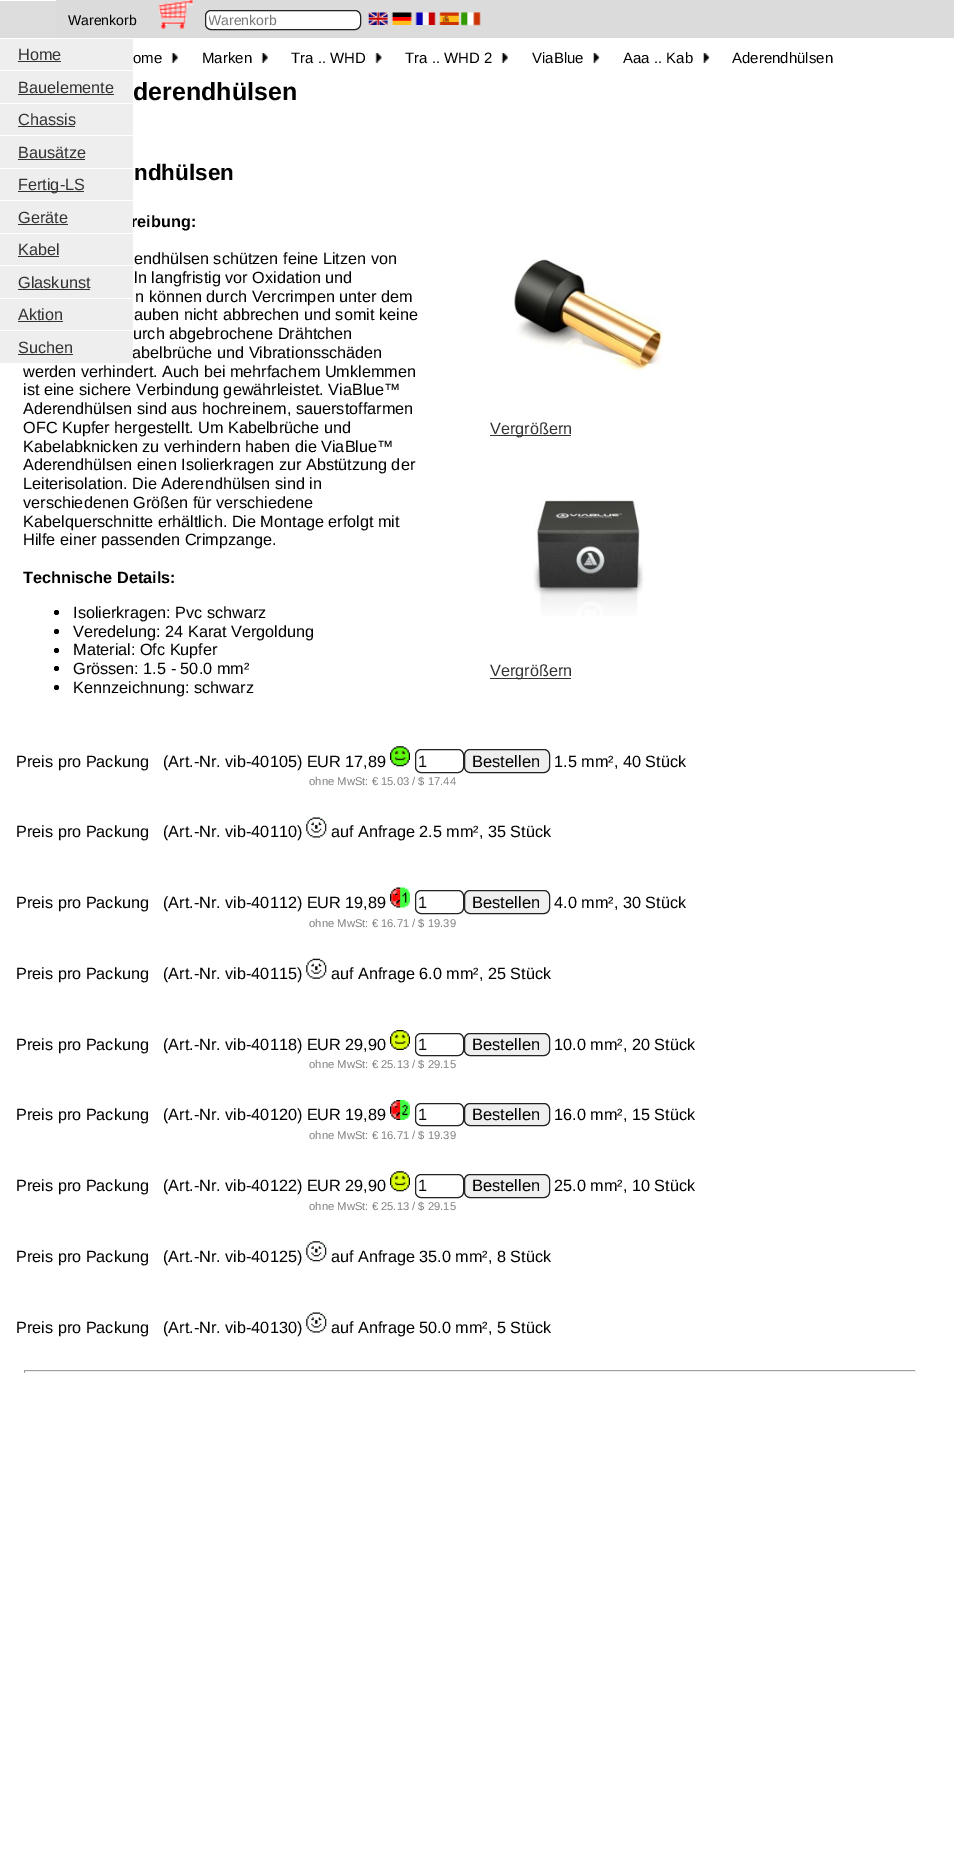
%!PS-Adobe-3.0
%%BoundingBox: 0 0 954 1875
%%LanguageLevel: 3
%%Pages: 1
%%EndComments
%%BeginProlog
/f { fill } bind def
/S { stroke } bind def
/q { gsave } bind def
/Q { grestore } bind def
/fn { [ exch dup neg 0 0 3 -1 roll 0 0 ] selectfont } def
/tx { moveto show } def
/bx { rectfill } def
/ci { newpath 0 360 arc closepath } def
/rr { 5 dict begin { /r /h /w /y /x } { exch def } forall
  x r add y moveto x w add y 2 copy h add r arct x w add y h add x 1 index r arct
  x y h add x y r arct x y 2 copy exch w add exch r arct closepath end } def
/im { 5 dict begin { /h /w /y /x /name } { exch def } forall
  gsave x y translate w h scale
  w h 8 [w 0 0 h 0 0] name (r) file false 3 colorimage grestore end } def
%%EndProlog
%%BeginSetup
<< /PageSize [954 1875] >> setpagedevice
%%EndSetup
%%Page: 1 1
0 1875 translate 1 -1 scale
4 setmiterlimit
1 setgray
0 0 954 1875 bx
0.859 setgray
56 0 898 38 bx
/LiberationSans-Regular 14 fn
0 setgray
(Warenkorb) 68 25 tx
(image0.raw) 158 0 36 29 im
1 setgray
205.5 10.5 155 19 5.5 rr q f Q
0.133 setgray
S
q
209 13 149 15 rectclip
0.467 setgray
(Warenkorb) 208 25 tx
Q
(image1.raw) 368 12 20 13 im
(image2.raw) 391 12 21 13 im
(image3.raw) 415 12 21 13 im
(image4.raw) 439 12 20 13 im
(image5.raw) 461 12 20 14 im
0.867 setgray
0 1 56 37 bx
0.933 setgray
0 39 133 31 bx
/LiberationSans-Regular 16.25 fn
0.2 setgray
(Home) 18 60 tx
18 61 43 1 bx
0.933 setgray
0 71 133 32 bx
0.2 setgray
(Bauelemente) 18 93 tx
18 94 96 1 bx
0.933 setgray
0 104 133 31 bx
0.2 setgray
(Chassis) 18 125 tx
18 126 57 1 bx
0.933 setgray
0 136 133 32 bx
0.2 setgray
(Bausätze) 18 158 tx
18 159 67 1 bx
0.933 setgray
0 169 133 31 bx
0.2 setgray
18 191 66 1 bx
(Fertig-LS) 18 190 tx
/LiberationSans-Bold 16.25 fn
0 setgray
(reibung:) 131 227 tx
0.933 setgray
0 201 133 32 bx
/LiberationSans-Regular 16.25 fn
0.2 setgray
(Geräte) 18 223 tx
18 224 50 1 bx
0.933 setgray
0 234 133 31 bx
0.2 setgray
(Kabel) 18 255 tx
18 256 41 1 bx
0.933 setgray
0 266 133 32 bx
0.2 setgray
(Glaskunst) 18 288 tx
18 289 72 1 bx
0.933 setgray
0 299 133 31 bx
0.2 setgray
(Aktion) 18 320 tx
18 321 45 1 bx
0 setgray
(abelbrüche und Vibrationsschäden) 132 358 tx
0.933 setgray
0 331 133 32 bx
0.2 setgray
(Suchen) 18 353 tx
18 354 55 1 bx
/LiberationSans-Regular 15 fn
0 setgray
(ome) 133 63 tx
(image6.raw) 171 53 7 10 im
(Marken) 202 63 tx
(image6.raw) 261 53 7 10 im
(Tra .. WHD) 291 63 tx
(image7.raw) 375 53 7 10 im
(Tra .. WHD 2) 405 63 tx
(image8.raw) 501 53 7 10 im
(ViaBlue) 532 63 tx
(image9.raw) 593 53 7 10 im
(Aaa .. Kab) 623 63 tx
(image9.raw) 703 53 7 10 im
(Aderendhülsen) 732 63 tx
/LiberationSans-Bold 25 fn
(derendhülsen) 133 100 tx
/LiberationSans-Bold 22.5 fn
(ndhülsen) 134 180 tx
/LiberationSans-Regular 16.25 fn
(endhülsen schützen feine Litzen von) 134 264 tx
(ln langfristig vor Oxidation und) 134 283 tx
(n können durch Vercrimpen unter dem) 135 302 tx
(auben nicht abbrechen und somit keine) 134 320 tx
(urch abgebrochene Drähtchen) 133 339 tx
(werden verhindert. Auch bei mehrfachem Umklemmen) 23 377 tx
(ist eine sichere Verbindung gewährleistet. ViaBlue™) 23 395 tx
(Aderendhülsen sind aus hochreinem, sauerstoffarmen) 23 414 tx
(OFC Kupfer hergestellt. Um Kabelbrüche und) 23 433 tx
(Kabelabknicken zu verhindern haben die ViaBlue™) 23 452 tx
(Aderendhülsen einen Isolierkragen zur Abstützung der) 23 470 tx
(Leiterisolation. Die Aderendhülsen sind in) 23 489 tx
(verschiedenen Größen für verschiedene) 23 508 tx
(Kabelquerschnitte erhältlich. Die Montage erfolgt mit) 23 527 tx
(Hilfe einer passenden Crimpzange.) 23 545 tx
/LiberationSans-Bold 16.25 fn
(Technische Details:) 23 583 tx
56.5 612.5 2.5 ci f
/LiberationSans-Regular 16.25 fn
(Isolierkragen: Pvc schwarz) 73 618 tx
56.5 631.5 2.5 ci f
(Veredelung: 24 Karat Vergoldung) 73 637 tx
56.5 650.5 2.5 ci f
(Material: Ofc Kupfer) 73 655 tx
56.5 668.5 2.5 ci f
(Grössen: 1.5 - 50.0 mm²) 73 674 tx
56.5 687.5 2.5 ci f
(Kennzeichnung: schwarz) 73 693 tx
(image10.raw) 514 259 149 113 im
0.2 setgray
490 435 81 1 bx
(Vergrößern) 490 434 tx
(image11.raw) 533 500 111 116 im
490 678 81 1 bx
(Vergrößern) 490 676 tx
0 setgray
(Preis pro Packung) 16 767 tx
(\(Art.-Nr. vib-40105\) EUR 17,89) 163 767 tx
(image12.raw) 390 746 20 21 im
0.133 setgray
415.5 749.5 48 23 5.5 rr S
/LiberationSans-Regular 16.5 fn
0 setgray
(1) 418 767 tx
0.937 setgray
464.5 749.5 85 23 5.5 rr q f Q
0.133 setgray
S
0 setgray
(Bestellen) 472 767 tx
/LiberationSans-Regular 11.25 fn
0.502 setgray
(ohne MwSt: € 15.03 / $ 17.44) 309 785 tx
/LiberationSans-Regular 16.25 fn
0 setgray
(1.5 mm², 40 Stück) 554 767 tx
(Preis pro Packung) 16 837 tx
(\(Art.-Nr. vib-40110\)) 163 837 tx
(image13.raw) 306 817 21 21 im
(auf Anfrage) 331 837 tx
(2.5 mm², 35 Stück) 419 837 tx
(Preis pro Packung) 16 908 tx
(\(Art.-Nr. vib-40112\) EUR 19,89) 163 908 tx
(image14.raw) 390 887 20 21 im
0.133 setgray
415.5 890.5 48 23 5.5 rr S
/LiberationSans-Regular 16.5 fn
0 setgray
(1) 418 908 tx
0.937 setgray
464.5 890.5 85 23 5.5 rr q f Q
0.133 setgray
S
0 setgray
(Bestellen) 472 908 tx
/LiberationSans-Regular 11.25 fn
0.502 setgray
(ohne MwSt: € 16.71 / $ 19.39) 309 927 tx
/LiberationSans-Regular 16.25 fn
0 setgray
(4.0 mm², 30 Stück) 554 908 tx
(Preis pro Packung) 16 979 tx
(\(Art.-Nr. vib-40115\)) 163 979 tx
(image15.raw) 306 958 21 21 im
(auf Anfrage) 331 979 tx
(6.0 mm², 25 Stück) 419 979 tx
(Preis pro Packung) 16 1050 tx
(\(Art.-Nr. vib-40118\) EUR 29,90) 163 1050 tx
(image16.raw) 390 1030 20 20 im
0.133 setgray
415.5 1033.5 48 22 5.5 rr S
/LiberationSans-Regular 16.5 fn
0 setgray
(1) 418 1050 tx
0.937 setgray
464.5 1033.5 85 22 5.5 rr q f Q
0.133 setgray
S
0 setgray
(Bestellen) 472 1050 tx
/LiberationSans-Regular 11.25 fn
0.502 setgray
(ohne MwSt: € 25.13 / $ 29.15) 309 1068 tx
/LiberationSans-Regular 16.25 fn
0 setgray
(10.0 mm², 20 Stück) 554 1050 tx
(Preis pro Packung) 16 1120 tx
(\(Art.-Nr. vib-40120\) EUR 19,89) 163 1120 tx
(image17.raw) 390 1100 20 20 im
0.133 setgray
415.5 1103.5 48 22 5.5 rr S
/LiberationSans-Regular 16.5 fn
0 setgray
(1) 418 1120 tx
0.937 setgray
464.5 1103.5 85 22 5.5 rr q f Q
0.133 setgray
S
0 setgray
(Bestellen) 472 1120 tx
/LiberationSans-Regular 11.25 fn
0.502 setgray
(ohne MwSt: € 16.71 / $ 19.39) 309 1139 tx
/LiberationSans-Regular 16.25 fn
0 setgray
(16.0 mm², 15 Stück) 554 1120 tx
(Preis pro Packung) 16 1191 tx
(\(Art.-Nr. vib-40122\) EUR 29,90) 163 1191 tx
(image18.raw) 390 1171 20 21 im
0.133 setgray
415.5 1174.5 48 23 5.5 rr S
/LiberationSans-Regular 16.5 fn
0 setgray
(1) 418 1191 tx
0.937 setgray
464.5 1174.5 85 23 5.5 rr q f Q
0.133 setgray
S
0 setgray
(Bestellen) 472 1191 tx
/LiberationSans-Regular 11.25 fn
0.502 setgray
(ohne MwSt: € 25.13 / $ 29.15) 309 1210 tx
/LiberationSans-Regular 16.25 fn
0 setgray
(25.0 mm², 10 Stück) 554 1191 tx
(Preis pro Packung) 16 1262 tx
(\(Art.-Nr. vib-40125\)) 163 1262 tx
(image19.raw) 306 1241 21 21 im
(auf Anfrage) 331 1262 tx
(35.0 mm², 8 Stück) 419 1262 tx
(Preis pro Packung) 16 1333 tx
(\(Art.-Nr. vib-40130\)) 163 1333 tx
(image13.raw) 306 1312 21 21 im
(auf Anfrage) 331 1333 tx
(50.0 mm², 5 Stück) 419 1333 tx
0.624 setgray
24 1370 892 1 bx
0.933 setgray
915 1370 1 3 bx
24 1371 892 1 bx
0.624 setgray
24 1370 1 3 bx
showpage
%%EOF
